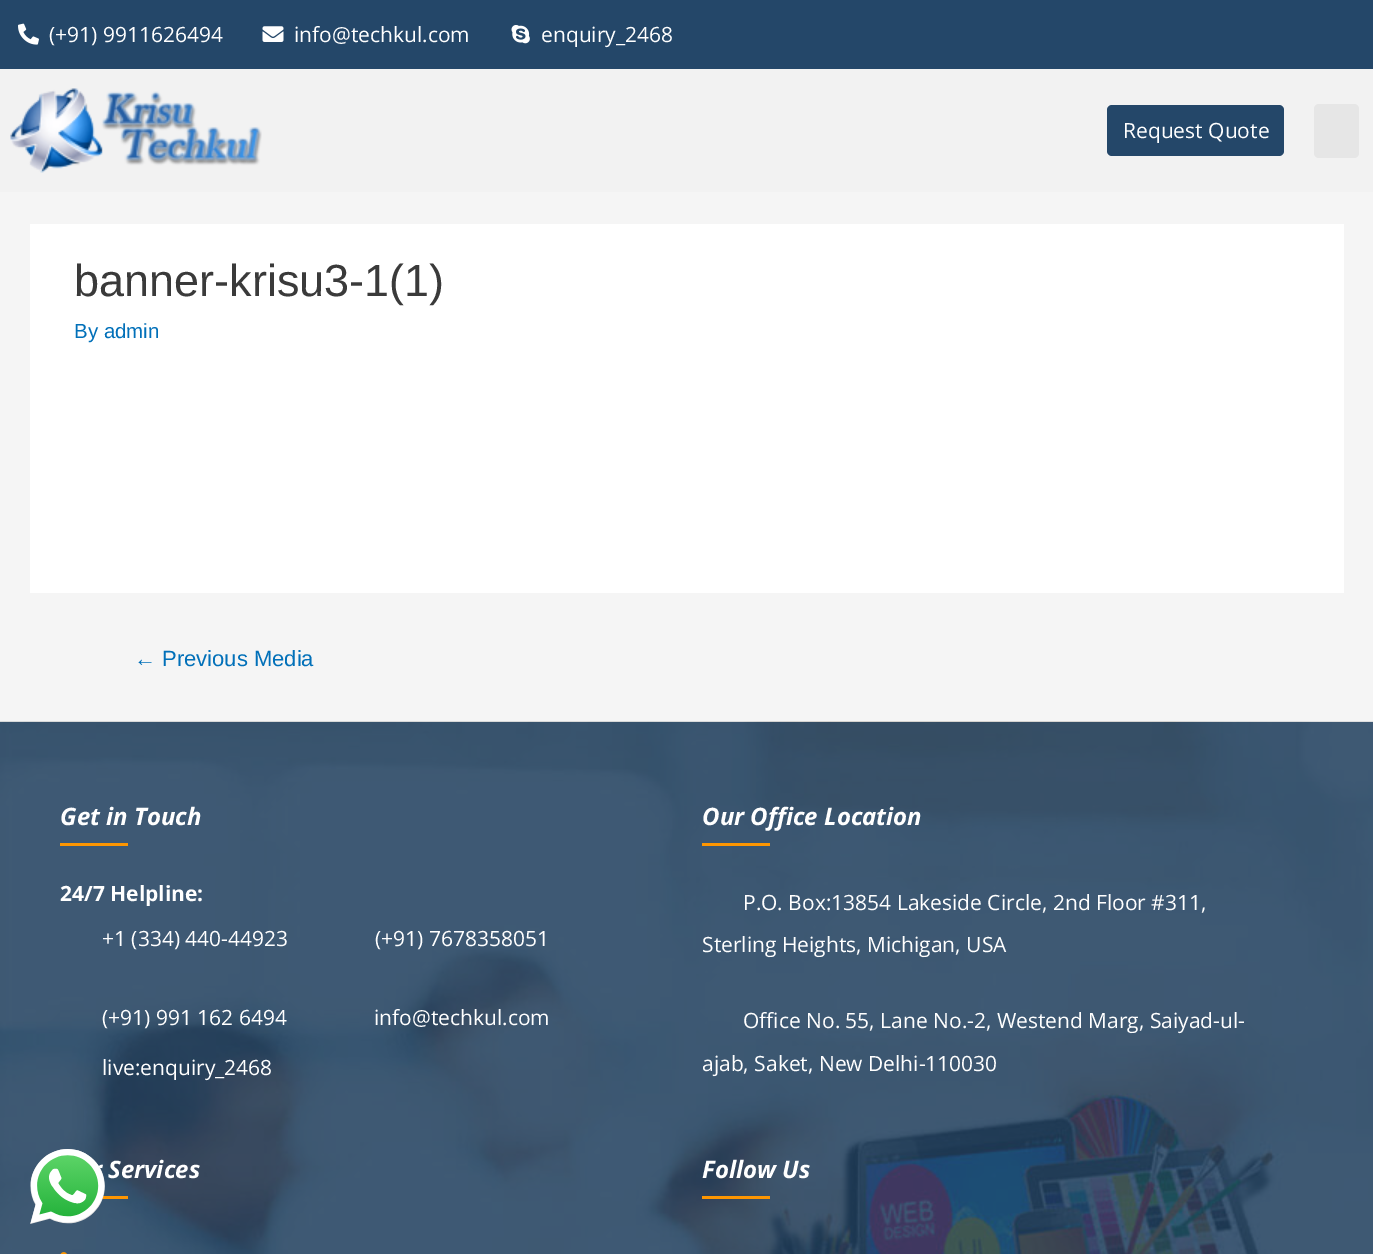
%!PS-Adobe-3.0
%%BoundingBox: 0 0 1373 1254
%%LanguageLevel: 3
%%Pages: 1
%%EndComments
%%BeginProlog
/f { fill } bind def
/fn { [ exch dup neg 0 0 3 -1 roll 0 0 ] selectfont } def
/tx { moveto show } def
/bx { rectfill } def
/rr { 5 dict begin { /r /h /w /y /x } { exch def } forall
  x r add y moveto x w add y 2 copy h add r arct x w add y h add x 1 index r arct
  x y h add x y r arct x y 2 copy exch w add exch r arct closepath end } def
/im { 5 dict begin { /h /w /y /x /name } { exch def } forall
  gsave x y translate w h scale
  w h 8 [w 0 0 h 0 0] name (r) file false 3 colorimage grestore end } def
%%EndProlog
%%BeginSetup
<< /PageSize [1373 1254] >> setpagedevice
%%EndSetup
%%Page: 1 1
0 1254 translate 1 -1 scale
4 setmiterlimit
0.961 setgray
0 0 1373 1254 bx
0.141 0.278 0.412 setrgbcolor
0 0 1373 69 bx
(image0.raw) 18 23 21 22 im
/OpenSans-Regular 21 fn
1 setgray
(\(+91\) 9911626494) 49 42 tx
(image1.raw) 262 26 22 16 im
(info@techkul.com) 294 42 tx
(image2.raw) 511 25 19 19 im
(enquiry_2468) 541 42 tx
0.949 setgray
0 69 1373 123 bx
(image3.raw) 10 88 252 85 im
0.141 0.278 0.412 setrgbcolor
1107 105 177 51 5 rr f
1 setgray
(Request Quote) 1123 138 tx
0.902 setgray
1314 104 45 54 5 rr f
1 setgray
30 224 1314 369 bx
/LiberationSans-Regular 45 fn
0.227 setgray
(banner-krisu3-1\(1\)) 74 296 tx
/LiberationSans-Regular 20.5 fn
0.004 0.439 0.725 setrgbcolor
(By admin) 74 338 tx
/LiberationSans-Regular 22 fn
(← Previous Media) 134 666 tx
(image4.raw) 0 721 1373 533 im
/OpenSans-BoldItalic 24 fn
1 setgray
(Get in Touch) 60 825 tx
0.996 0.588 0.004 setrgbcolor
60 843 68 3 bx
/OpenSans-Bold 21 fn
1 setgray
(24/7 Helpline:) 60 901 tx
/OpenSans-Regular 21 fn
(+1 \(334\) 440-44923) 102 946 tx
(\(+91\) 7678358051) 375 946 tx
(\(+91\) 991 162 6494) 102 1025 tx
(info@techkul.com) 374 1025 tx
(live:enquiry_2468) 102 1075 tx
/OpenSans-BoldItalic 24 fn
(Our Office Location) 702 825 tx
0.996 0.588 0.004 setrgbcolor
702 843 68 3 bx
/OpenSans-Regular 21 fn
1 setgray
(P.O. Box:13854 Lakeside Circle, 2nd Floor #311,) 743 910 tx
(Sterling Heights, Michigan, USA) 702 952 tx
(Office No. 55, Lane No.-2, Westend Marg, Saiyad-ul-) 743 1028 tx
(ajab, Saket, New Delhi-110030) 702 1071 tx
/OpenSans-BoldItalic 24 fn
(Services) 108 1178 tx
0.996 0.588 0.004 setrgbcolor
102 1196 26 3 bx
(image5.raw) 60 1252 7 2 im
1 setgray
(Follow Us) 702 1178 tx
0.996 0.588 0.004 setrgbcolor
702 1196 68 3 bx
(image6.raw) 30 1149 75 75 im
showpage
%%EOF
